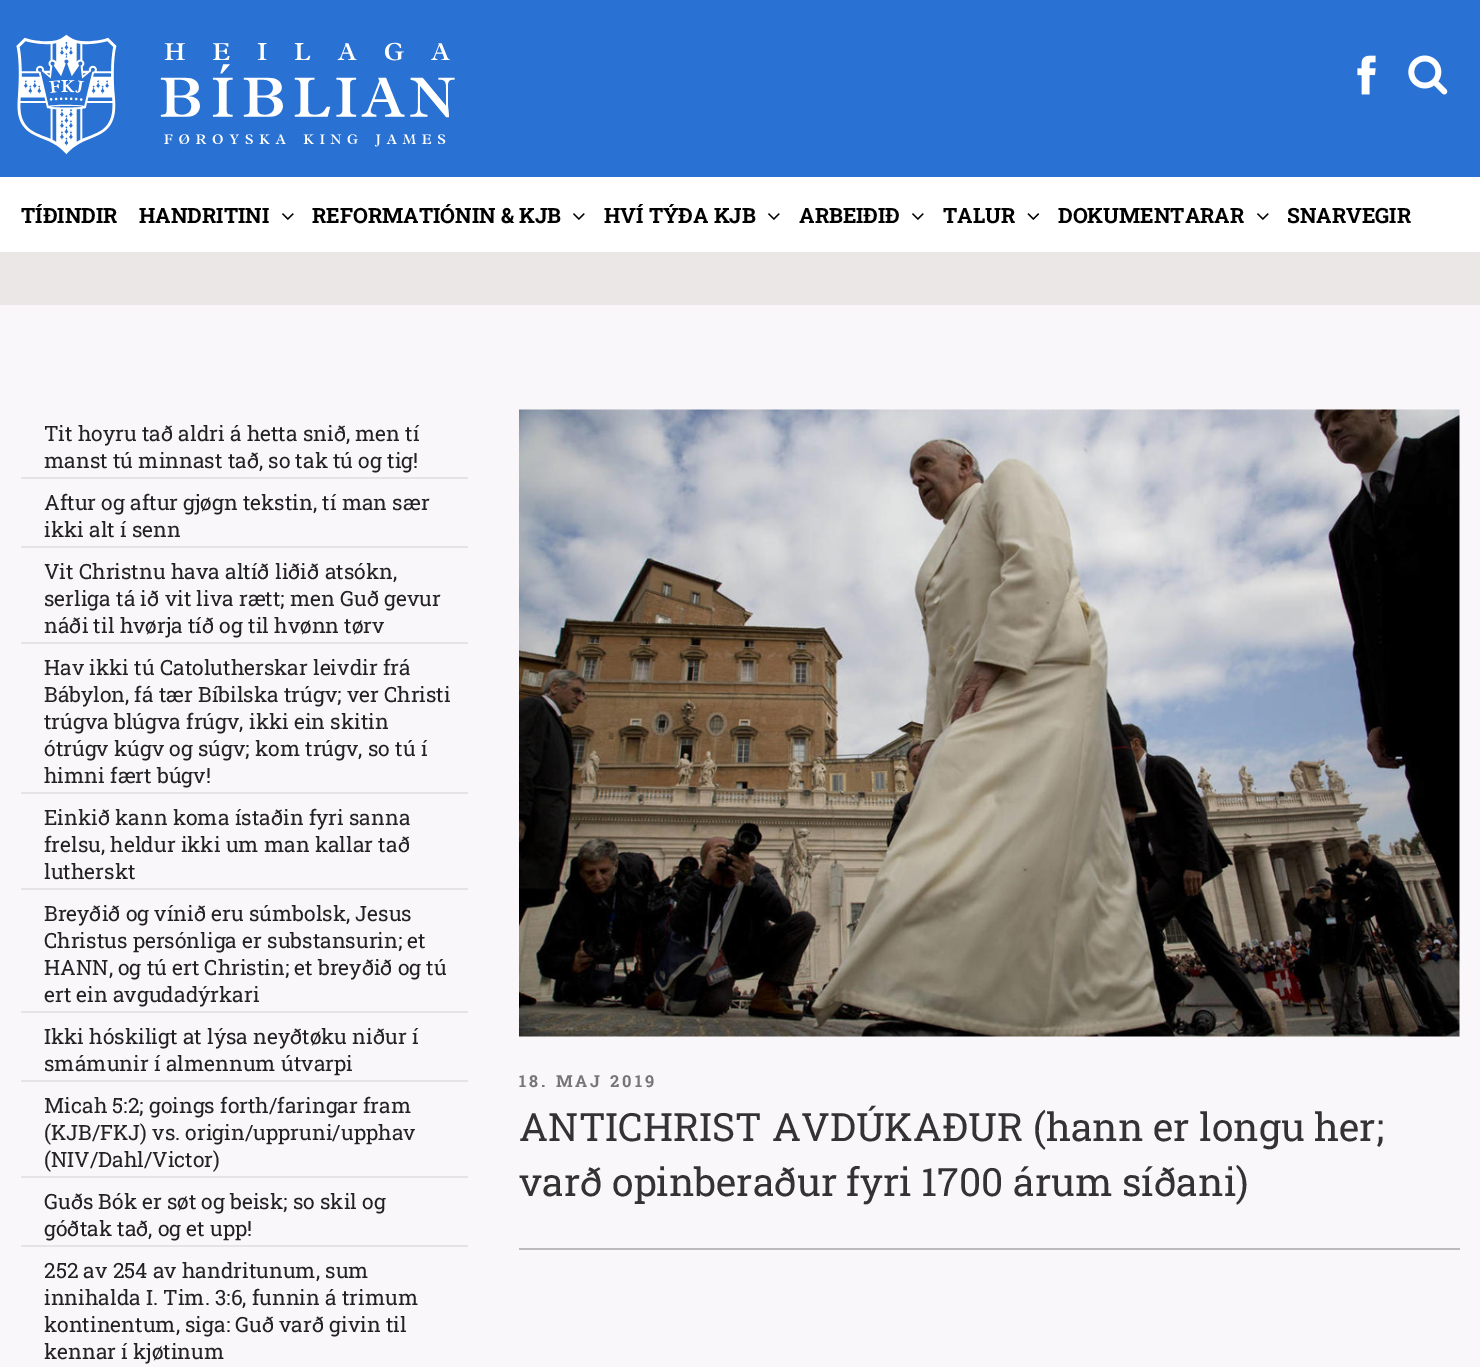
%!PS-Adobe-3.0
%%BoundingBox: 0 0 1480 1367
%%LanguageLevel: 3
%%Pages: 1
%%EndComments
%%BeginProlog
/m { moveto } bind def
/fn { [ exch dup neg 0 0 3 -1 roll 0 0 ] selectfont } def
/tx { moveto show } def
/bx { rectfill } def
/im { 5 dict begin { /h /w /y /x /name } { exch def } forall
  gsave x y translate w h scale
  w h 8 [w 0 0 h 0 0] name (r) file false 3 colorimage grestore end } def
%%EndProlog
%%BeginSetup
<< /PageSize [1480 1367] >> setpagedevice
%%EndSetup
%%Page: 1 1
0 1367 translate 1 -1 scale
4 setmiterlimit
0.98 0.969 0.98 setrgbcolor
0 0 1480 1367 bx
0.161 0.443 0.824 setrgbcolor
0 0 1480 177 bx
(image0.raw) 16 34 439 121 im
(image1.raw) 1357 55 19 40 im
(image2.raw) 1408 55 40 40 im
1 setgray
0 177 1480 75 bx
/RobotoSlab-Bold 21 fn
0 setgray
(TÍÐINDIR) 21 223 tx
(HANDRITINI) 139 223 tx
(image3.raw) 282 213 12 7 im
(REFORMATIÓNIN & KJB) 312 223 tx
(image3.raw) 573 213 12 7 im
(HVÍ TÝÐA KJB) 604 223 tx
(image3.raw) 768 213 12 7 im
(ARBEIÐIÐ) 799 223 tx
(image3.raw) 912 213 12 7 im
(TALUR) 943 223 tx
(image4.raw) 1027 213 13 7 im
(DOKUMENTARAR) 1058 223 tx
(image3.raw) 1257 213 12 7 im
(SNARVEGIR) 1287 223 tx
0.922 0.906 0.906 setrgbcolor
0 252 1480 53 bx
0.894 setgray
21 477 447 2 bx
/RobotoSlab-Regular 21 fn
0.133 setgray
(Tit hoyru tað aldri á hetta snið, men tí) 44 441 tx
(manst tú minnast tað, so tak tú og tig!) 44 468 tx
0.894 setgray
21 546 447 2 bx
0.133 setgray
(Aftur og aftur gjøgn tekstin, tí man sær) 44 510 tx
(ikki alt í senn) 44 537 tx
0.894 setgray
21 642 447 2 bx
0.133 setgray
(Vit Christnu hava altíð liðið atsókn,) 44 579 tx
(serliga tá ið vit liva rætt; men Guð gevur) 44 606 tx
(náði til hvørja tíð og til hvønn tørv) 44 633 tx
0.894 setgray
21 792 447 2 bx
0.133 setgray
(Hav ikki tú Catolutherskar leivdir frá) 44 675 tx
(Bábylon, fá tær Bíbilska trúgv; ver Christi) 44 702 tx
(trúgva blúgva frúgv, ikki ein skitin) 44 729 tx
(ótrúgv kúgv og súgv; kom trúgv, so tú í) 44 756 tx
(himni fært búgv!) 44 783 tx
0.894 setgray
21 888 447 2 bx
0.133 setgray
(Einkið kann koma ístaðin fyri sanna) 44 825 tx
(frelsu, heldur ikki um man kallar tað) 44 852 tx
(lutherskt) 44 879 tx
0.894 setgray
21 1011 447 2 bx
0.133 setgray
(Breyðið og vínið eru súmbolsk, Jesus) 44 921 tx
(Christus persónliga er substansurin; et) 44 948 tx
(HANN, og tú ert Christin; et breyðið og tú) 44 975 tx
(ert ein avgudadýrkari) 44 1002 tx
0.894 setgray
21 1080 447 2 bx
0.133 setgray
(Ikki hóskiligt at lýsa neyðtøku niður í) 44 1044 tx
(smámunir í almennum útvarpi) 44 1071 tx
0.894 setgray
21 1176 447 2 bx
0.133 setgray
(Micah 5:2; goings forth/faringar fram) 44 1113 tx
(\(KJB/FKJ\) vs. origin/uppruni/upphav) 44 1140 tx
(\(NIV/Dahl/Victor\)) 44 1167 tx
0.894 setgray
21 1245 447 2 bx
0.133 setgray
(Guðs Bók er søt og beisk; so skil og) 44 1209 tx
(góðtak tað, og et upp!) 44 1236 tx
(252 av 254 av handritunum, sum) 44 1278 tx
(innihalda I. Tim. 3:6, funnin á trimum) 44 1305 tx
(kontinentum, siga: Guð varð givin til) 44 1332 tx
(kennar í kjøtinum) 44 1359 tx
(image5.raw) 519 409 941 628 im
/RobotoSlab-Bold 16.5 fn
0.463 setgray
519 1087 m 3 0 (18. MAJ 2019) ashow
/RobotoSlab-Regular 39 fn
0.2 setgray
(ANTICHRIST AVDÚKAÐUR \(hann er longu her;) 519 1141 tx
(varð opinberaður fyri 1700 árum síðani\)) 519 1196 tx
0.733 setgray
519 1248 941 2 bx
showpage
%%EOF
